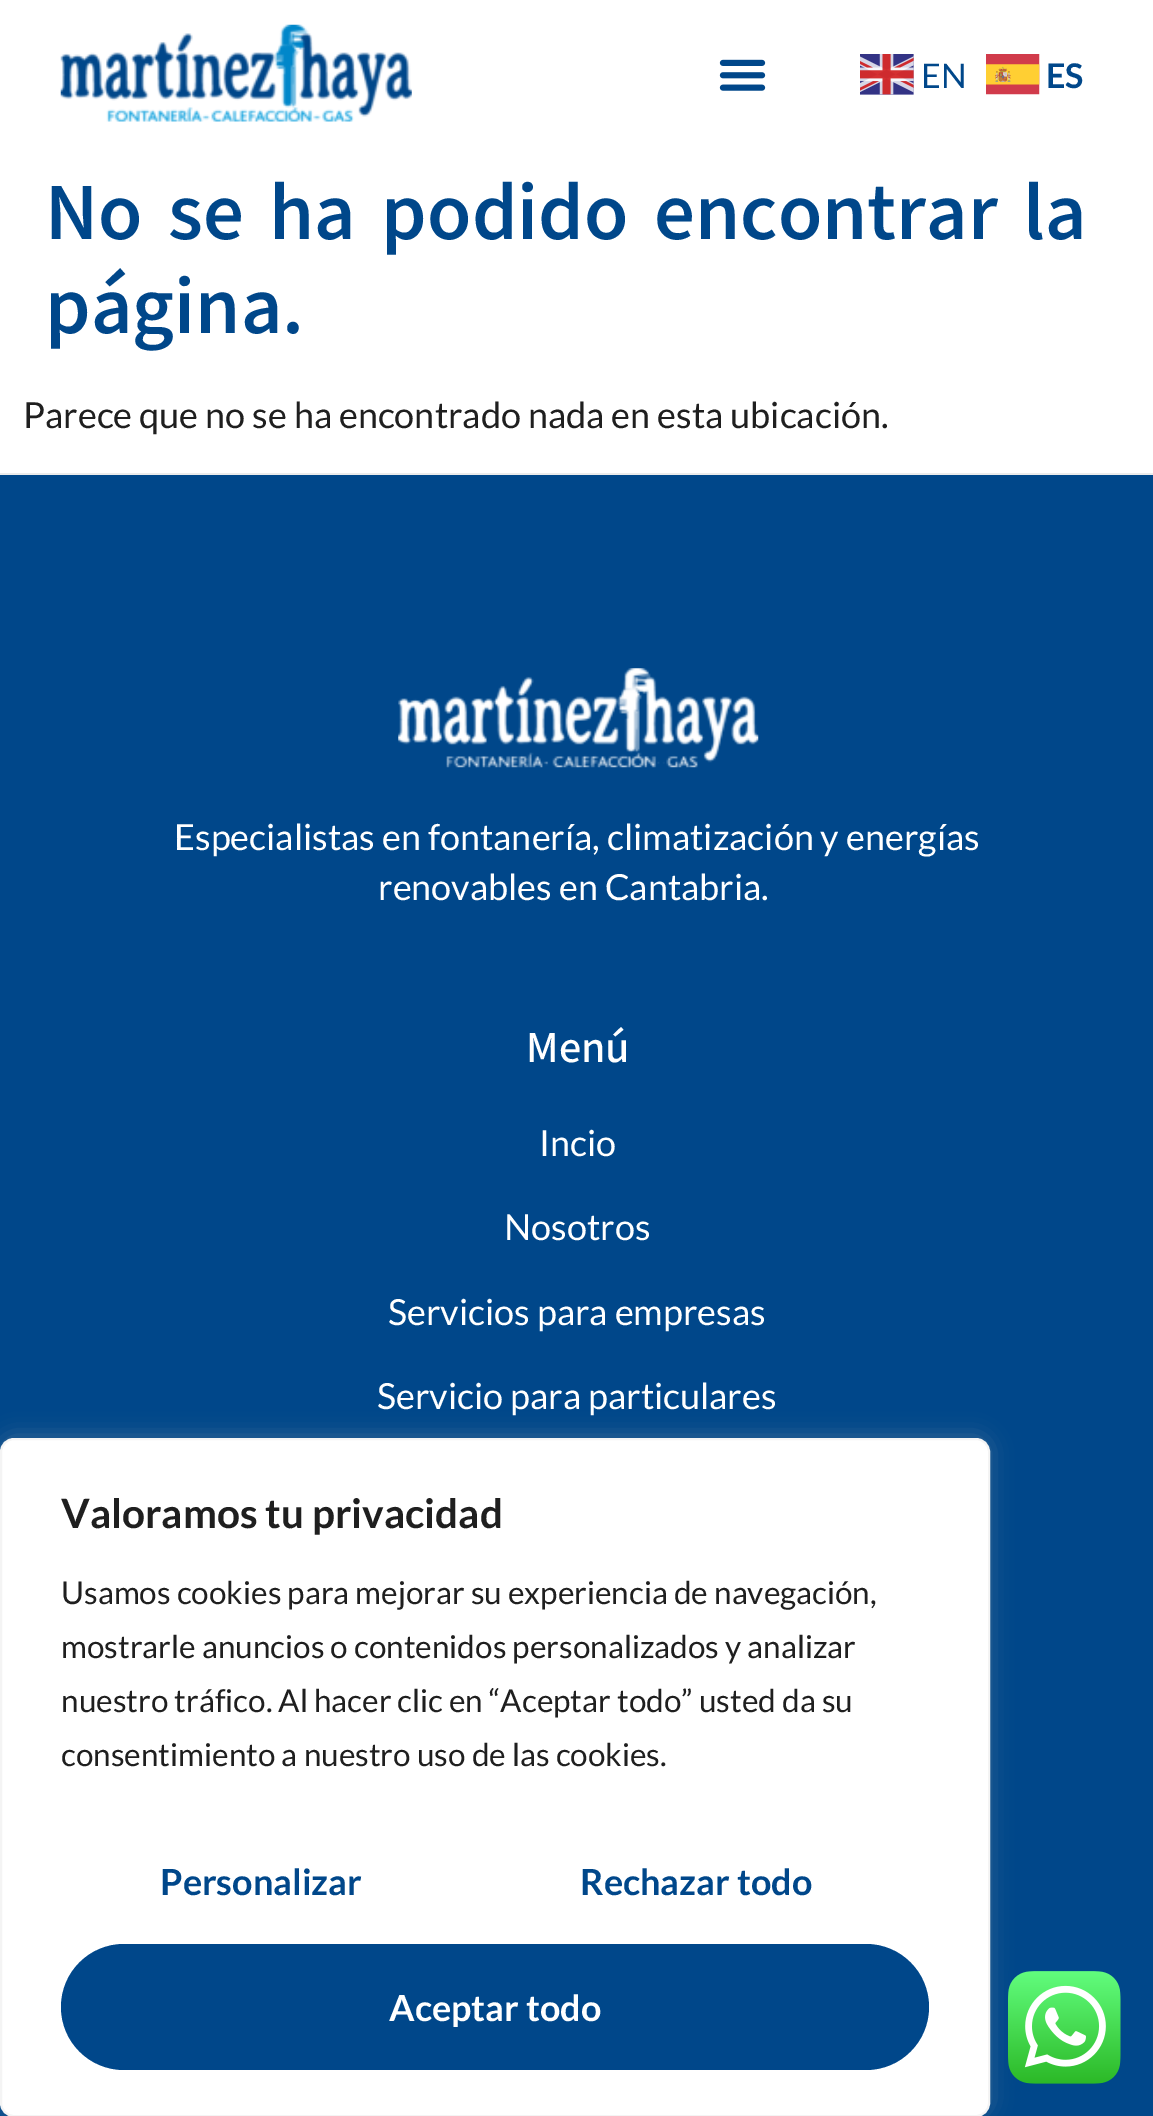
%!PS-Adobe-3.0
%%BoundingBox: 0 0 1153 2116
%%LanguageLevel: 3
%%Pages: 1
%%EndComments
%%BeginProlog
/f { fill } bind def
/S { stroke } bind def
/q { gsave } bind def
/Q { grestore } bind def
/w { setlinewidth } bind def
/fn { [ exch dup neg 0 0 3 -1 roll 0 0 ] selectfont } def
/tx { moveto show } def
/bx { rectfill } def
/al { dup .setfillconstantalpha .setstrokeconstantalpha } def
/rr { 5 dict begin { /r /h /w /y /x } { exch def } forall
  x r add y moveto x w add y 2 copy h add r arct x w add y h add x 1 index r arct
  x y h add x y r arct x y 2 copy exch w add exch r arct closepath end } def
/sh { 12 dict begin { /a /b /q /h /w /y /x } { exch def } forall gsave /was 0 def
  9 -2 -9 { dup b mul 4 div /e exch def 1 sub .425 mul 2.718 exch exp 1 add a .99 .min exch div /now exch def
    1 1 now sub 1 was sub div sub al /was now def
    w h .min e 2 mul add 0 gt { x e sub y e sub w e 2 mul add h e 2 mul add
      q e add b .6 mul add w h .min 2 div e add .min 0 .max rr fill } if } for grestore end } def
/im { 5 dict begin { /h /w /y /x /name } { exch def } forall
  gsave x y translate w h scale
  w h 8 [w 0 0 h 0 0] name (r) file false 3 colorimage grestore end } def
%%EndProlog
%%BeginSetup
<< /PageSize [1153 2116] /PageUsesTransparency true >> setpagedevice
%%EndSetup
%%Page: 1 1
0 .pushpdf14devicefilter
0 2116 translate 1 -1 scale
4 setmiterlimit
1 setgray
0 0 1153 2116 bx
(image0.raw) 60 24 352 98 im
(image1.raw) 719 59 47 32 im
(image2.raw) 860 54 54 41 im
/Lato-Regular 34 fn
0 0.278 0.541 setrgbcolor
(EN) 921 88 tx
(image3.raw) 986 54 54 41 im
/Lato-Bold 34 fn
(ES) 1046 88 tx
/Akatab-Bold 78.75 fn
(No se ha podido encontrar la) 45 239 tx
(página.) 45 333 tx
/Lato-Regular 36 fn
0.122 setgray
(Parece que no se ha encontrado nada en esta ubicación.) 23 428 tx
0 0.278 0.541 setrgbcolor
0 475 1153 1641 bx
0.922 setgray
0 473 1153 2 bx
(image4.raw) 398 668 361 100 im
1 setgray
(Especialistas en fontanería, climatización y energías) 174 850 tx
(renovables en Cantabria.) 378 900 tx
/Akatab-SemiBold 43 fn
(Menú) 526 1062 tx
/Lato-Regular 36 fn
(Incio) 539 1156 tx
(Nosotros) 504 1240 tx
(Servicios para empresas) 388 1325 tx
(Servicio para particulares) 377 1409 tx
0.675 0.671 0.671 setrgbcolor
0 1436 990 679 14 11 0.3 sh
1 setgray
1 1439 988 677 13 rr q f Q
0.957 setgray
2 w
S
/Lato-Bold 40.5 fn
0.122 setgray
(Valoramos tu privacidad) 61 1528 tx
/Lato-Regular 31.5 fn
(Usamos cookies para mejorar su experiencia de navegación,) 61 1604 tx
(mostrarle anuncios o contenidos personalizados y analizar) 61 1658 tx
(nuestro tráfico. Al hacer clic en “Aceptar todo” usted da su) 61 1712 tx
(consentimiento a nuestro uso de las cookies.) 61 1766 tx
/Lato-Bold 36 fn
0 0.278 0.541 setrgbcolor
(Personalizar) 160 1895 tx
(Rechazar todo) 580 1895 tx
61 1944 868 126 63 rr f
1 setgray
(Aceptar todo) 389 2021 tx
(image5.raw) 1008 1971 113 113 im
.poppdf14devicefilter showpage
%%EOF
